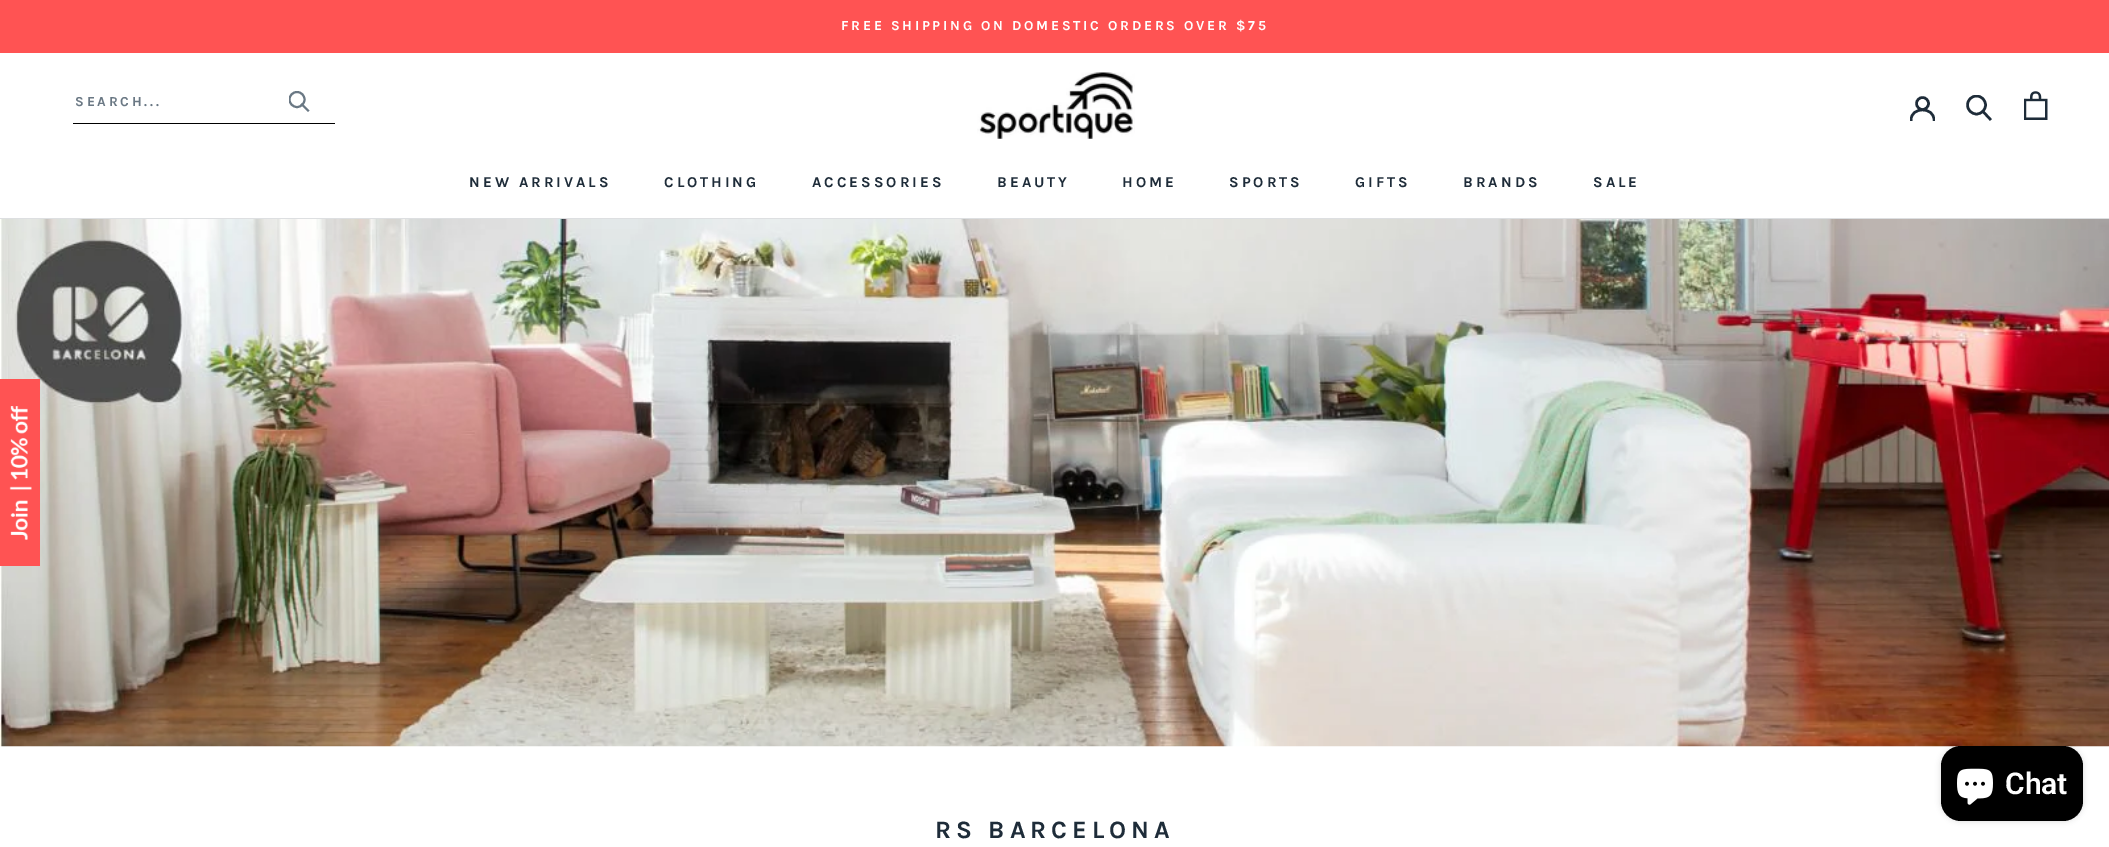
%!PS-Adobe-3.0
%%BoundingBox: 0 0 2109 847
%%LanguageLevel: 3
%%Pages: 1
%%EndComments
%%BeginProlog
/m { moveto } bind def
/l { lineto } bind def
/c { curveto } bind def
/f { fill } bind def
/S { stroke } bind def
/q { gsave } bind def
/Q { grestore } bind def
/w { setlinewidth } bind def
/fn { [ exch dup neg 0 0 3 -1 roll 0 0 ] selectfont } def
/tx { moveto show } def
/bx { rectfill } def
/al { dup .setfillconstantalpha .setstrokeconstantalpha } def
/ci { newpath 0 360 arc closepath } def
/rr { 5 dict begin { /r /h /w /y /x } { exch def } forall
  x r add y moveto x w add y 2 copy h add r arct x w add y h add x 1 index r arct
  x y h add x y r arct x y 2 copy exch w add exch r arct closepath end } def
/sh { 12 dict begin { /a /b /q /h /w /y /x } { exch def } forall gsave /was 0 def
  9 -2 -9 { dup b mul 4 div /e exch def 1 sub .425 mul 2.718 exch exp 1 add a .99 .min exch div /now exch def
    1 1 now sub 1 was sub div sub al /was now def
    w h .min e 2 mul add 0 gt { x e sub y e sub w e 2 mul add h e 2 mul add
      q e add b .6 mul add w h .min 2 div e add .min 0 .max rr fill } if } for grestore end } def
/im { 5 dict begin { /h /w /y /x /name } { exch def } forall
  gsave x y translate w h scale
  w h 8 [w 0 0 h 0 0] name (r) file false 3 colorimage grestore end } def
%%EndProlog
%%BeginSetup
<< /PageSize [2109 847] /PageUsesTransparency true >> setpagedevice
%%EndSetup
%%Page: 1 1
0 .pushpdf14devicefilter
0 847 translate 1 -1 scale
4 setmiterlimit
1 setgray
0 0 2109 847 bx
(image3.raw) 0 219 2109 528 im
1 0.325 0.325 setrgbcolor
0 379 40 187 bx
(image0.raw) 9 406 23 134 im
0 0 2109 53 bx
/Karla-Bold 13.75 fn
1 setgray
841 30 m 2.75 0 (FREE SHIPPING ON DOMESTIC ORDERS OVER $75) ashow
0.867 0.875 0.882 setrgbcolor
0 218 2109 1 bx
(image1.raw) 977 72 158 67 im
q
1910 96 25 25 rectclip
0.118 0.173 0.224 setrgbcolor
2.5 w
2 setlinecap
1911 120 m 1911 106.5 1934 106.5 1934 120 c S
Q
0.118 0.173 0.224 setrgbcolor
2.5 w
1922.5 103.5 6 ci S
2 setlinecap
1990 119 m 1983 111.5 l S
q
1966 95 27 26 rectclip
0 setlinecap
1976.5 105 9 ci S
Q
(image2.raw) 2024 91 24 29 im
0 setgray
73 123 262 1 bx
0.416 0.471 0.518 setrgbcolor
75 106 m 2.75 0 (SEARCH...) ashow
2 w
308 110.5 m 302 104.5 l S
q
289 91 21 22 rectclip
0 setlinecap
297 99.5 7.5 ci S
Q
/Karla-Bold 15 fn
0.118 0.173 0.224 setrgbcolor
469 187 m 3 0 (NEW ARRIVALS) ashow
664 187 m 3 0 (CLOTHING) ashow
812 187 m 3 0 (ACCESSORIES) ashow
997 187 m 3 0 (BEAUTY) ashow
1122 187 m 3 0 (HOME) ashow
1229 187 m 3 0 (SPORTS) ashow
1355 187 m 3 0 (GIFTS) ashow
1463 187 m 3 0 (BRANDS) ashow
1593 187 m 3 0 (SALE) ashow
/Karla-Bold 25 fn
935 838 m 5 0 (RS BARCELONA) ashow
0 setgray
1941 746 142 75 20 3 0.15 sh
1941 746 142 75 20 rr f
(image4.raw) 1957 768 36 37 im
/Roboto-SemiBold 30 fn
1 setgray
(Chat) 2005 794 tx
.poppdf14devicefilter showpage
%%EOF
